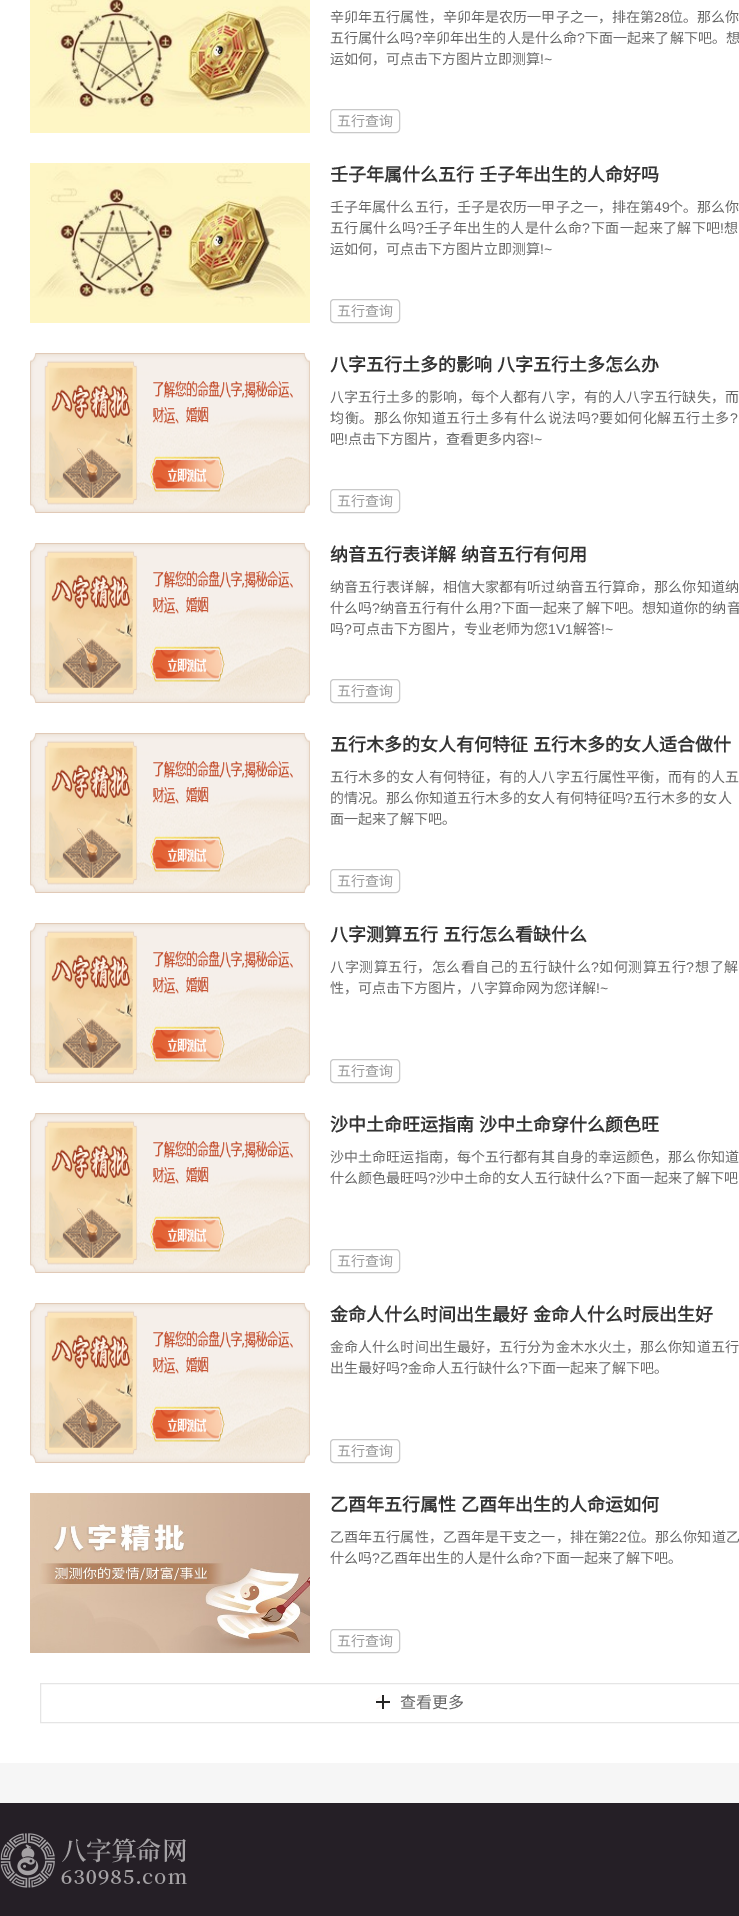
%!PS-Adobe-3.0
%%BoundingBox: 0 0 739 1916
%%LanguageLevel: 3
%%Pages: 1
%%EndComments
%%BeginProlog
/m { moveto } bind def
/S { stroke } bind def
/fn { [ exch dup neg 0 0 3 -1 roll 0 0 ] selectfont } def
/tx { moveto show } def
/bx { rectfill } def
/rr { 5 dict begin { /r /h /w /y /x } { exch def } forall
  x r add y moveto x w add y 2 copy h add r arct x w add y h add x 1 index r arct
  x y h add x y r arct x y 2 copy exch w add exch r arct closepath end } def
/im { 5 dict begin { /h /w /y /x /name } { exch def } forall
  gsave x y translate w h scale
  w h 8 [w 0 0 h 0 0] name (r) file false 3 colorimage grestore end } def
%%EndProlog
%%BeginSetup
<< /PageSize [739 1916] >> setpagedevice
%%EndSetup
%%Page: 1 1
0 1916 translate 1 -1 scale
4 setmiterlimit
0.965 setgray
0 0 739 1916 bx
1 setgray
0 0 739 1763 bx
(image0.raw) 30 0 280 133 im
/NotoSansCJKSC-Regular 14 fn
0.4 setgray
330 22 m 0.1 0 (辛卯年五行属性，辛卯年是农历一甲子之一，排在第) ashow
/LiberationSans-Regular 14 fn
654 22 m 0.1 0 (28) ashow
/NotoSansCJKSC-Regular 14 fn
669 22 m 0.1 0 (位。那么你) ashow
330 43 m 0.1 0 (五行属什么吗) ashow
/LiberationSans-Regular 14 fn
414 43 m 0.1 0 (?) ashow
/NotoSansCJKSC-Regular 14 fn
422 43 m 0.1 0 (辛卯年出生的人是什么命) ashow
/LiberationSans-Regular 14 fn
577 43 m 0.1 0 (?) ashow
/NotoSansCJKSC-Regular 14 fn
585 43 m 0.1 0 (下面一起来了解下吧。想) ashow
(运如何，可点击下方图片立即测算) 330 64 tx
/LiberationSans-Regular 14 fn
(!~) 540 64 tx
0.788 setgray
330.5 109.5 69 23 3.5 rr S
/NotoSansCJKSC-Regular 14 fn
0.6 setgray
(五行查询) 337 126 tx
(image1.raw) 30 163 280 160 im
/NotoSansCJKSC-Bold 18 fn
0.2 setgray
330 181 m 1 0 32 (壬子年属什么五行 壬子年出生的人命好吗) widthshow
/NotoSansCJKSC-Regular 14 fn
0.4 setgray
330 212 m 0.1 0 (壬子年属什么五行，壬子是农历一甲子之一，排在第) ashow
/LiberationSans-Regular 14 fn
654 212 m 0.1 0 (49) ashow
/NotoSansCJKSC-Regular 14 fn
669 212 m 0.1 0 (个。那么你) ashow
330 233 m 0.4 0 (五行属什么吗) ashow
/LiberationSans-Regular 14 fn
416 233 m 0.4 0 (?) ashow
/NotoSansCJKSC-Regular 14 fn
424 233 m 0.4 0 (壬子年出生的人是什么命) ashow
/LiberationSans-Regular 14 fn
582 233 m 0.4 0 (?) ashow
/NotoSansCJKSC-Regular 14 fn
591 233 m 0.4 0 (下面一起来了解下吧) ashow
/LiberationSans-Regular 14 fn
720 233 m 0.4 0 (!) ashow
/NotoSansCJKSC-Regular 14 fn
724 233 m 0.4 0 (想) ashow
(运如何，可点击下方图片立即测算) 330 254 tx
/LiberationSans-Regular 14 fn
(!~) 540 254 tx
0.788 setgray
330.5 299.5 69 23 3.5 rr S
/NotoSansCJKSC-Regular 14 fn
0.6 setgray
(五行查询) 337 316 tx
(image2.raw) 30 353 280 160 im
/NotoSansCJKSC-Bold 18 fn
0.2 setgray
330 371 m 1 0 32 (八字五行土多的影响 八字五行土多怎么办) widthshow
/NotoSansCJKSC-Regular 14 fn
0.4 setgray
330 402 m 0.1 0 (八字五行土多的影响，每个人都有八字，有的人八字五行缺失，而) ashow
330 423 m 0.5 0 (均衡。那么你知道五行土多有什么说法吗) ashow
/LiberationSans-Regular 14 fn
591 423 m 0.5 0 (?) ashow
/NotoSansCJKSC-Regular 14 fn
599 423 m 0.5 0 (要如何化解五行土多) ashow
/LiberationSans-Regular 14 fn
730 423 m 0.5 0 (?) ashow
/NotoSansCJKSC-Regular 14 fn
(吧) 330 444 tx
/LiberationSans-Regular 14 fn
(!) 344 444 tx
/NotoSansCJKSC-Regular 14 fn
(点击下方图片，查看更多内容) 348 444 tx
/LiberationSans-Regular 14 fn
(!~) 530 444 tx
0.788 setgray
330.5 489.5 69 23 3.5 rr S
/NotoSansCJKSC-Regular 14 fn
0.6 setgray
(五行查询) 337 506 tx
(image2.raw) 30 543 280 160 im
/NotoSansCJKSC-Bold 18 fn
0.2 setgray
330 561 m 1 0 32 (纳音五行表详解 纳音五行有何用) widthshow
/NotoSansCJKSC-Regular 14 fn
0.4 setgray
330 592 m 0.1 0 (纳音五行表详解，相信大家都有听过纳音五行算命，那么你知道纳) ashow
330 613 m 0.1 0 (什么吗) ashow
/LiberationSans-Regular 14 fn
372 613 m 0.1 0 (?) ashow
/NotoSansCJKSC-Regular 14 fn
380 613 m 0.1 0 (纳音五行有什么用) ashow
/LiberationSans-Regular 14 fn
493 613 m 0.1 0 (?) ashow
/NotoSansCJKSC-Regular 14 fn
501 613 m 0.1 0 (下面一起来了解下吧。想知道你的纳音) ashow
(吗) 330 634 tx
/LiberationSans-Regular 14 fn
(?) 344 634 tx
/NotoSansCJKSC-Regular 14 fn
(可点击下方图片，专业老师为您) 352 634 tx
/LiberationSans-Regular 14 fn
(1V1) 548 634 tx
/NotoSansCJKSC-Regular 14 fn
(解答) 573 634 tx
/LiberationSans-Regular 14 fn
(!~) 601 634 tx
0.788 setgray
330.5 679.5 69 23 3.5 rr S
/NotoSansCJKSC-Regular 14 fn
0.6 setgray
(五行查询) 337 696 tx
(image2.raw) 30 733 280 160 im
/NotoSansCJKSC-Bold 18 fn
0.2 setgray
330 751 m 1 0 32 (五行木多的女人有何特征 五行木多的女人适合做什) widthshow
/NotoSansCJKSC-Regular 14 fn
0.4 setgray
330 782 m 0.1 0 (五行木多的女人有何特征，有的人八字五行属性平衡，而有的人五) ashow
330 803 m 0.1 0 (的情况。那么你知道五行木多的女人有何特征吗) ashow
/LiberationSans-Regular 14 fn
625 803 m 0.1 0 (?) ashow
/NotoSansCJKSC-Regular 14 fn
633 803 m 0.1 0 (五行木多的女人) ashow
(面一起来了解下吧。) 330 824 tx
0.788 setgray
330.5 869.5 69 23 3.5 rr S
0.6 setgray
(五行查询) 337 886 tx
(image2.raw) 30 923 280 160 im
/NotoSansCJKSC-Bold 18 fn
0.2 setgray
330 941 m 1 0 32 (八字测算五行 五行怎么看缺什么) widthshow
/NotoSansCJKSC-Regular 14 fn
0.4 setgray
330 972 m 0.5 0 (八字测算五行，怎么看自己的五行缺什么) ashow
/LiberationSans-Regular 14 fn
591 972 m 0.5 0 (?) ashow
/NotoSansCJKSC-Regular 14 fn
599 972 m 0.5 0 (如何测算五行) ashow
/LiberationSans-Regular 14 fn
686 972 m 0.5 0 (?) ashow
/NotoSansCJKSC-Regular 14 fn
695 972 m 0.5 0 (想了解) ashow
(性，可点击下方图片，八字算命网为您详解) 330 993 tx
/LiberationSans-Regular 14 fn
(!~) 596 993 tx
0.788 setgray
330.5 1059.5 69 23 3.5 rr S
/NotoSansCJKSC-Regular 14 fn
0.6 setgray
(五行查询) 337 1076 tx
(image2.raw) 30 1113 280 160 im
/NotoSansCJKSC-Bold 18 fn
0.2 setgray
330 1131 m 1 0 32 (沙中土命旺运指南 沙中土命穿什么颜色旺) widthshow
/NotoSansCJKSC-Regular 14 fn
0.4 setgray
330 1162 m 0.1 0 (沙中土命旺运指南，每个五行都有其自身的幸运颜色，那么你知道) ashow
(什么颜色最旺吗) 330 1183 tx
/LiberationSans-Regular 14 fn
(?) 428 1183 tx
/NotoSansCJKSC-Regular 14 fn
(沙中土命的女人五行缺什么) 436 1183 tx
/LiberationSans-Regular 14 fn
(?) 604 1183 tx
/NotoSansCJKSC-Regular 14 fn
(下面一起来了解下吧) 612 1183 tx
0.788 setgray
330.5 1249.5 69 23 3.5 rr S
0.6 setgray
(五行查询) 337 1266 tx
(image2.raw) 30 1303 280 160 im
/NotoSansCJKSC-Bold 18 fn
0.2 setgray
330 1321 m 1 0 32 (金命人什么时间出生最好 金命人什么时辰出生好) widthshow
/NotoSansCJKSC-Regular 14 fn
0.4 setgray
330 1352 m 0.1 0 (金命人什么时间出生最好，五行分为金木水火土，那么你知道五行) ashow
(出生最好吗) 330 1373 tx
/LiberationSans-Regular 14 fn
(?) 400 1373 tx
/NotoSansCJKSC-Regular 14 fn
(金命人五行缺什么) 408 1373 tx
/LiberationSans-Regular 14 fn
(?) 520 1373 tx
/NotoSansCJKSC-Regular 14 fn
(下面一起来了解下吧。) 528 1373 tx
0.788 setgray
330.5 1439.5 69 23 3.5 rr S
0.6 setgray
(五行查询) 337 1456 tx
(image3.raw) 30 1493 280 160 im
/NotoSansCJKSC-Bold 18 fn
0.2 setgray
330 1511 m 1 0 32 (乙酉年五行属性 乙酉年出生的人命运如何) widthshow
/NotoSansCJKSC-Regular 14 fn
0.4 setgray
330 1542 m 0.1 0 (乙酉年五行属性，乙酉年是干支之一，排在第) ashow
/LiberationSans-Regular 14 fn
611 1542 m 0.1 0 (22) ashow
/NotoSansCJKSC-Regular 14 fn
627 1542 m 0.1 0 (位。那么你知道乙) ashow
(什么吗) 330 1563 tx
/LiberationSans-Regular 14 fn
(?) 372 1563 tx
/NotoSansCJKSC-Regular 14 fn
(乙酉年出生的人是什么命) 380 1563 tx
/LiberationSans-Regular 14 fn
(?) 534 1563 tx
/NotoSansCJKSC-Regular 14 fn
(下面一起来了解下吧。) 542 1563 tx
0.788 setgray
330.5 1629.5 69 23 3.5 rr S
0.6 setgray
(五行查询) 337 1646 tx
0.898 setgray
40.5 1683.5 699 39 rectstroke
(image4.raw) 376 1695 14 14 im
/NotoSansCJKSC-Regular 16 fn
0.4 setgray
(查看更多) 400 1708 tx
0.145 0.122 0.149 setrgbcolor
0 1803 739 113 bx
(image5.raw) 0 1833 187 55 im
showpage
%%EOF
